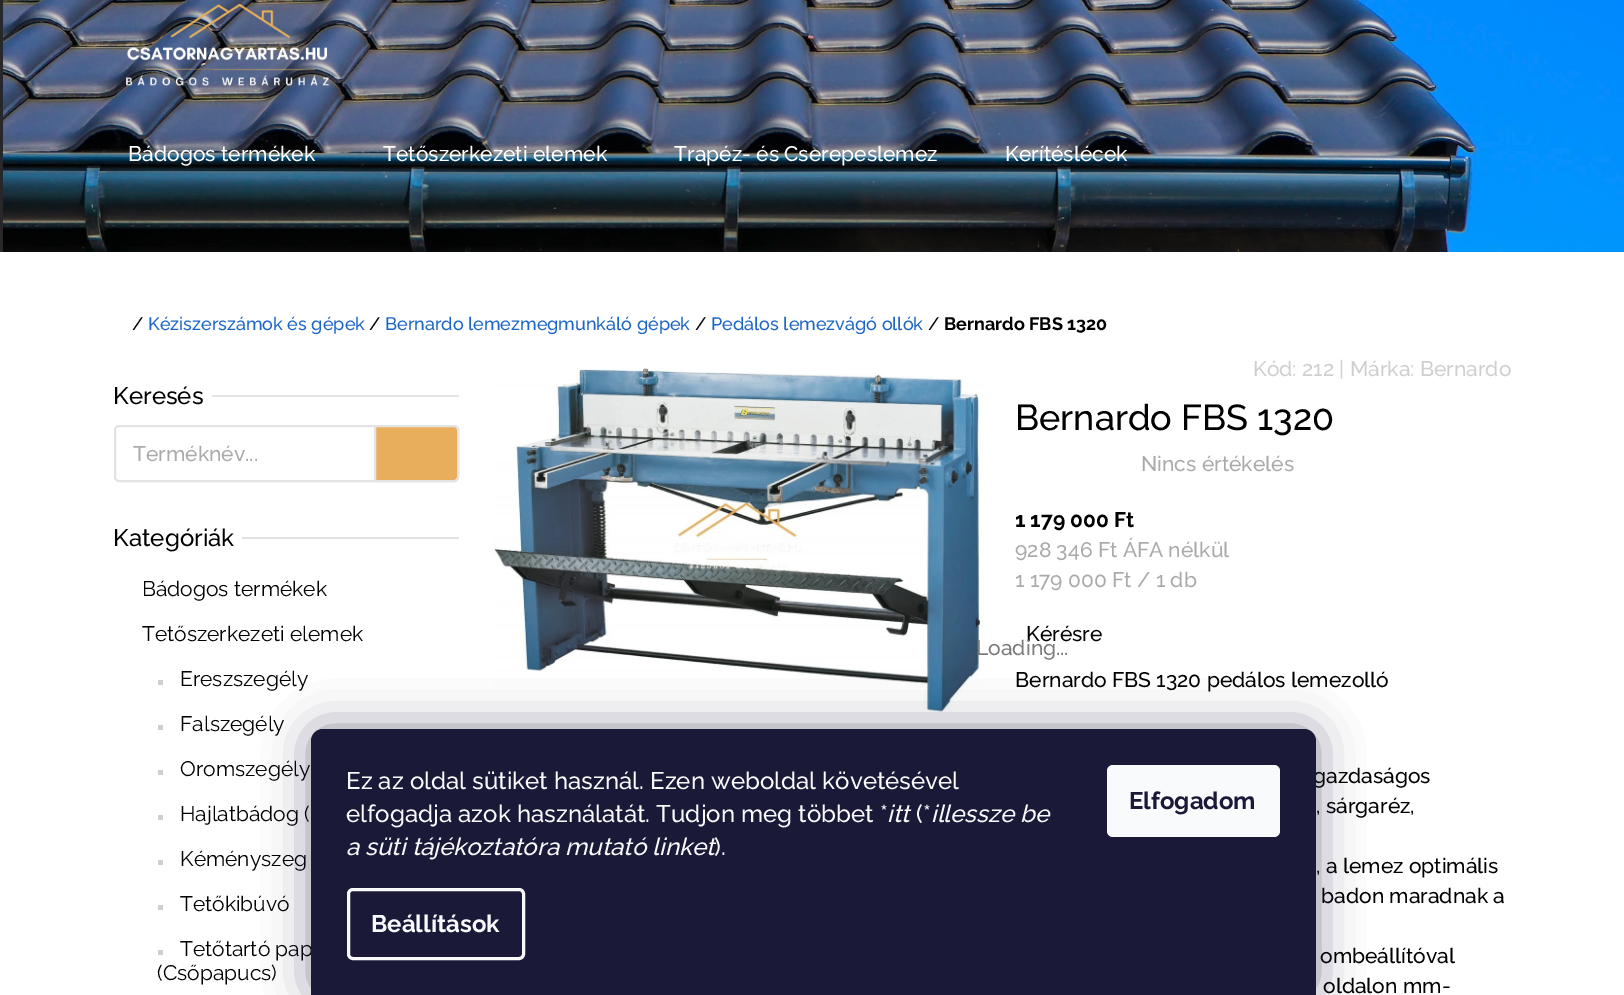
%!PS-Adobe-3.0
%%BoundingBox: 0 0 1624 995
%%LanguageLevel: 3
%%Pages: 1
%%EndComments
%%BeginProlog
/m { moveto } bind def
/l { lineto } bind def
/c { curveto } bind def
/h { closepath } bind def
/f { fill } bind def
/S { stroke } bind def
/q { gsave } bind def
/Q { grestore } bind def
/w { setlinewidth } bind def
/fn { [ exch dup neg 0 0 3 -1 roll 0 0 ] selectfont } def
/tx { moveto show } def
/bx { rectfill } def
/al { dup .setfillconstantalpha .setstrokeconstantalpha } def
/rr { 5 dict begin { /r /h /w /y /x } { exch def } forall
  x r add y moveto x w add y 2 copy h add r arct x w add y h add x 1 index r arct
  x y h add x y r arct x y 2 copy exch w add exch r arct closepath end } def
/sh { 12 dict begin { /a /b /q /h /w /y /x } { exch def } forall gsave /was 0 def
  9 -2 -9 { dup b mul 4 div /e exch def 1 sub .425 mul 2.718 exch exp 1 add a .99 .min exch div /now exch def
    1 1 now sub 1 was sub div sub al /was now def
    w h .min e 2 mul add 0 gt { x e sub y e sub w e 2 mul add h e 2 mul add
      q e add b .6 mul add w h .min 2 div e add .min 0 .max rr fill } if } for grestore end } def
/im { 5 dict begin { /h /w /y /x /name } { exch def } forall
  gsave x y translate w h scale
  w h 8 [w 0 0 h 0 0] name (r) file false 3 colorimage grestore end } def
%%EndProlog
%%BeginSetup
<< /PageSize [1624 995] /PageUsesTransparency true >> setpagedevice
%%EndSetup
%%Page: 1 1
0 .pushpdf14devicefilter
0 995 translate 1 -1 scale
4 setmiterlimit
1 setgray
0 0 1624 995 bx
(image0.raw) 0 0 1624 252 im
(image1.raw) 126 3 204 83 im
/Raleway-Medium 21 fn
(Bádogos termékek) 128 161 tx
(Tetőszerkezeti elemek) 383 161 tx
(Trapéz- és Cserepeslemez) 674 161 tx
(Kerítéslécek) 1005 161 tx
/Raleway-Medium 18 fn
0 setgray
(/) 132 330 tx
0.102 0.396 0.776 setrgbcolor
(Kéziszerszámok és gépek) 148 330 tx
0 setgray
(/) 369 330 tx
0.102 0.396 0.776 setrgbcolor
(Bernardo lemezmegmunkáló gépek) 385 330 tx
0 setgray
(/) 695 330 tx
0.102 0.396 0.776 setrgbcolor
(Pedálos lemezvágó ollók) 711 330 tx
0 setgray
(/) 928 330 tx
/Raleway-Bold 18 fn
(Bernardo FBS 1320) 944 330 tx
/Raleway-Medium 24 fn
(Keresés) 113 404 tx
0.89 setgray
212 395 247 2 bx
2 w
115 426 343 55 4 rr S
/Raleway-Medium 21 fn
0.667 setgray
(Terméknév...) 133 461 tx
0.91 0.682 0.361 setrgbcolor
375 426 m 454 426 l 456 426 458 428 458 430 c 458 477 l 458 479 456 481 454 481 c 375 481 l h q f Q
0.89 setgray
S
/Raleway-Medium 24 fn
0 setgray
(Kategóriák) 113 546 tx
0.89 setgray
242 537 217 2 bx
/Raleway-Regular 21 fn
0 setgray
(Bádogos termékek) 142 596 tx
(Tetőszerkezeti elemek) 142 641 tx
0.812 setgray
158 680 5 5 bx
0 setgray
(Ereszszegély) 180 686 tx
0.812 setgray
158 725 5 5 bx
0 setgray
(Falszegély) 180 731 tx
0.812 setgray
158 770 5 5 bx
0 setgray
(Oromszegély) 180 776 tx
0.812 setgray
158 815 5 5 bx
0 setgray
(Hajlatbádog \() 180 821 tx
0.812 setgray
158 860 5 5 bx
0 setgray
(Kéményszeg) 180 866 tx
0.812 setgray
158 905 5 5 bx
0 setgray
(Tetőkibúvó) 180 911 tx
0.812 setgray
158 950 5 5 bx
0 setgray
(Tetőtartó pap) 180 956 tx
(\(Csőpapucs\)) 157 980 tx
/Raleway-Medium 21 fn
0.812 setgray
(Kód: 212 | Márka: Bernardo) 1253 376 tx
/Raleway-Medium 36 fn
0 setgray
(Bernardo FBS 1320) 1015 430 tx
/Raleway-Medium 21 fn
0.667 setgray
(Nincs értékelés) 1141 471 tx
/Raleway-Bold 21 fn
0 setgray
(1 179 000 Ft) 1015 527 tx
/Raleway-Medium 21 fn
0.667 setgray
(928 346 Ft ÁFA nélkül) 1015 557 tx
(1 179 000 Ft / 1 db) 1015 587 tx
0 setgray
(Kérésre) 1026 641 tx
(Bernardo FBS 1320 pedálos lemezolló) 1015 687 tx
(gazdaságos) 1313 783 tx
(, sárgaréz,) 1316 813 tx
(, a lemez optimális) 1316 873 tx
(badon maradnak a) 1321 903 tx
(ombeállítóval) 1320 963 tx
(oldalon mm-) 1323 993 tx
(image2.raw) 493 368 492 344 im
0.482 0.482 0.486 setrgbcolor
(Loading...) 976 655 tx
0.106 0.098 0.224 setrgbcolor
311 729 1005 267 12 22.5 0.5 sh
0.102 0.098 0.216 setrgbcolor
323 729 m 1304 729 l 1310.5 729 1316 734.5 1316 741 c 1316 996 l 311 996 l 311 741 l 311 734.5 316.5 729 323 729 c h f
/Raleway-Medium 24 fn
0.973 0.98 0.984 setrgbcolor
(Ez az oldal sütiket használ. Ezen weboldal követésével) 346 789 tx
(elfogadja azok használatát. Tudjon meg többet *) 346 822 tx
/Raleway-MediumItalic 24 fn
(itt) 887 822 tx
/Raleway-Medium 24 fn
(\(*) 916 822 tx
/Raleway-MediumItalic 24 fn
(illessze be) 931 822 tx
(a süti tájékoztatóra mutató linket) 346 855 tx
/Raleway-Medium 24 fn
(\).) 714 855 tx
3 w
348.5 889.5 175 69 4.5 rr S
/Raleway-Bold 24 fn
(Beállítások) 371 932 tx
1107 765 173 72 6 rr f
0.102 0.098 0.216 setrgbcolor
(Elfogadom) 1129 809 tx
.poppdf14devicefilter showpage
%%EOF
